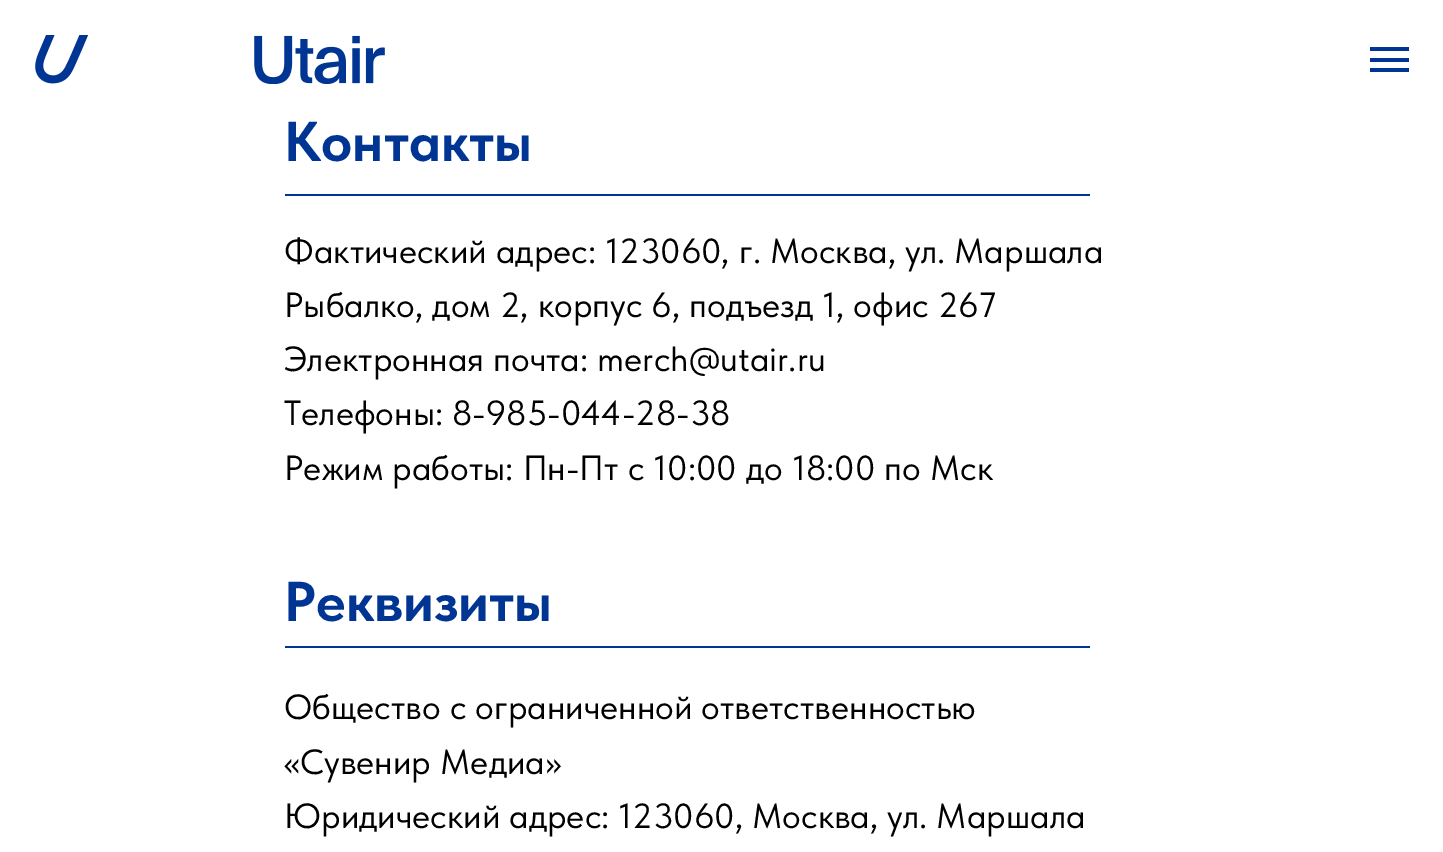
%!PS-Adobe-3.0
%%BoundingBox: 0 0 1443 852
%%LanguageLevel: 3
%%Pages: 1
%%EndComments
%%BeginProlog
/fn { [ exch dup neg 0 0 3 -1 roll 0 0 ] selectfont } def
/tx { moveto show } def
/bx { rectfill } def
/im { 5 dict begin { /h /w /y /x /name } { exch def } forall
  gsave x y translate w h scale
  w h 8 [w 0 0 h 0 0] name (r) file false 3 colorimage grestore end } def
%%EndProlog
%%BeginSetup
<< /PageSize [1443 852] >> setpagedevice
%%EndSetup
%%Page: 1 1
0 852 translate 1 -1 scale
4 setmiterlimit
1 setgray
0 0 1443 852 bx
(image0.raw) 35 35 350 49 im
0 0.208 0.58 setrgbcolor
1370 47 39 4 bx
1370 58 39 4 bx
1370 68 39 4 bx
/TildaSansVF-Bold 56 fn
(Контакты) 284 161 tx
285 194 805 2 bx
/TildaSansVF-Regular 35 fn
0 setgray
(Фактический адрес: 123060, г. Москва, ул. Маршала) 284 263 tx
(Рыбалко, дом 2, корпус 6, подъезд 1, офис 267) 284 317 tx
(Электронная почта: merch@utair.ru) 284 371 tx
(Телефоны: 8-985-044-28-38) 284 425 tx
(Режим работы: Пн-Пт с 10:00 до 18:00 по Мск) 284 480 tx
/TildaSansVF-Bold 56 fn
0 0.208 0.58 setrgbcolor
(Реквизиты) 284 621 tx
285 646 805 2 bx
/TildaSansVF-Regular 35 fn
0 setgray
(Общество с ограниченной ответственностью) 284 719 tx
(«Сувенир Медиа») 284 774 tx
(Юридический адрес: 123060, Москва, ул. Маршала) 284 828 tx
showpage
%%EOF
